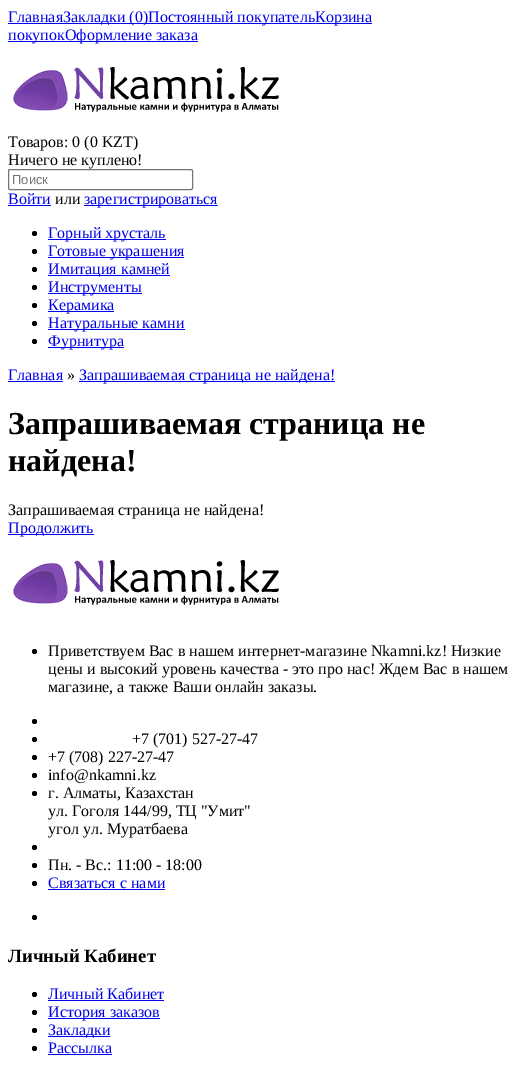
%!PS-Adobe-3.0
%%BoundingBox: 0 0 519 1087
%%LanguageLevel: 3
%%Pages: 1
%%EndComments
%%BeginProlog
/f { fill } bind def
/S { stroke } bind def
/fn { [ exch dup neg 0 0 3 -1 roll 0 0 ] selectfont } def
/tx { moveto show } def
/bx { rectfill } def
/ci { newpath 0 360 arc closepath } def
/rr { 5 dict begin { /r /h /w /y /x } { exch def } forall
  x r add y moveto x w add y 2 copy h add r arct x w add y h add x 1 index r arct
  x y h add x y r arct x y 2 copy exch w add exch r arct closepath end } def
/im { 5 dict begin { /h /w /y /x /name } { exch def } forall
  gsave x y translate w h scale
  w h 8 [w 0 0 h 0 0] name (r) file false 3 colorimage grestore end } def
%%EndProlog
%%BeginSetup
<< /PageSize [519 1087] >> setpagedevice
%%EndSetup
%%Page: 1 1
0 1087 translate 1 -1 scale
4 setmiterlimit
1 setgray
0 0 519 1087 bx
0 0 0.933 setrgbcolor
8 23 364 1 bx
/LiberationSerif-Regular 16 fn
(ГлавнаяЗакладки \(0\)Постоянный покупательКорзина) 8 22 tx
8 41 190 1 bx
(покупокОформление заказа) 8 40 tx
(image0.raw) 13 67 266 45 im
0 setgray
(Товаров: 0 \(0 KZT\)) 8 147 tx
(Ничего не куплено!) 8 165 tx
0.463 setgray
8.5 169.5 184 20 1.5 rr S
/LiberationSans-Regular 13 fn
0.459 setgray
(Поиск) 12 184 tx
/LiberationSerif-Regular 16 fn
0 0 0.933 setrgbcolor
(Войти) 8 204 tx
8 205 43 1 bx
0 setgray
(или) 55 204 tx
0 0 0.933 setrgbcolor
84 205 134 1 bx
(зарегистрироваться) 84 204 tx
0 setgray
34.5 233.5 2.5 ci f
0 0 0.933 setrgbcolor
48 239 118 1 bx
(Горный хрусталь) 48 238 tx
0 setgray
34.5 251.5 2.5 ci f
0 0 0.933 setrgbcolor
48 257 136 1 bx
(Готовые украшения) 48 256 tx
0 setgray
34.5 269.5 2.5 ci f
0 0 0.933 setrgbcolor
48 275 122 1 bx
(Имитация камней) 48 274 tx
0 setgray
34.5 287.5 2.5 ci f
0 0 0.933 setrgbcolor
48 293 94 1 bx
(Инструменты) 48 292 tx
0 setgray
34.5 305.5 2.5 ci f
0 0 0.933 setrgbcolor
48 311 66 1 bx
(Керамика) 48 310 tx
0 setgray
34.5 323.5 2.5 ci f
0 0 0.933 setrgbcolor
48 329 137 1 bx
(Натуральные камни) 48 328 tx
0 setgray
34.5 341.5 2.5 ci f
0 0 0.933 setrgbcolor
48 347 76 1 bx
(Фурнитура) 48 346 tx
(Главная) 8 380 tx
8 381 55 1 bx
0 setgray
(») 67 380 tx
0 0 0.933 setrgbcolor
79 381 256 1 bx
(Запрашиваемая страница не найдена!) 79 380 tx
/LiberationSerif-Bold 32 fn
0 setgray
(Запрашиваемая страница не) 8 434 tx
(найдена!) 8 471 tx
/LiberationSerif-Regular 16 fn
(Запрашиваемая страница не найдена!) 8 515 tx
0 0 0.933 setrgbcolor
8 534 86 1 bx
(Продолжить) 8 533 tx
(image0.raw) 13 560 266 45 im
0 setgray
34.5 651.5 2.5 ci f
(Приветствуем Ваc в нашем интернет-магазине Nkamni.kz! Низкие) 48 656 tx
(цены и высокий уровень качества - это про нас! Ждем Вас в нашем) 48 674 tx
(магазине, а также Ваши онлайн заказы.) 48 692 tx
34.5 721.5 2.5 ci f
34.5 739.5 2.5 ci f
(+7 \(701\) 527-27-47) 132 744 tx
34.5 757.5 2.5 ci f
(+7 \(708\) 227-27-47) 48 762 tx
34.5 775.5 2.5 ci f
(info@nkamni.kz) 48 780 tx
34.5 793.5 2.5 ci f
(г. Алматы, Казахстан) 48 798 tx
(ул. Гоголя 144/99, ТЦ "Умит") 48 816 tx
(угол ул. Муратбаева) 48 834 tx
34.5 847.5 2.5 ci f
34.5 865.5 2.5 ci f
(Пн. - Вс.: 11:00 - 18:00) 48 870 tx
34.5 883.5 2.5 ci f
0 0 0.933 setrgbcolor
(Связаться с нами) 48 888 tx
48 889 117 1 bx
0 setgray
34.5 917.5 2.5 ci f
/LiberationSerif-Bold 18.75 fn
(Личный Кабинет) 8 962 tx
34.5 994.5 2.5 ci f
/LiberationSerif-Regular 16 fn
0 0 0.933 setrgbcolor
(Личный Кабинет) 48 999 tx
48 1000 116 1 bx
0 setgray
34.5 1012.5 2.5 ci f
0 0 0.933 setrgbcolor
48 1018 112 1 bx
(История заказов) 48 1017 tx
0 setgray
34.5 1030.5 2.5 ci f
0 0 0.933 setrgbcolor
48 1036 62 1 bx
(Закладки) 48 1035 tx
0 setgray
34.5 1048.5 2.5 ci f
0 0 0.933 setrgbcolor
(Рассылка) 48 1053 tx
48 1054 64 1 bx
showpage
%%EOF
